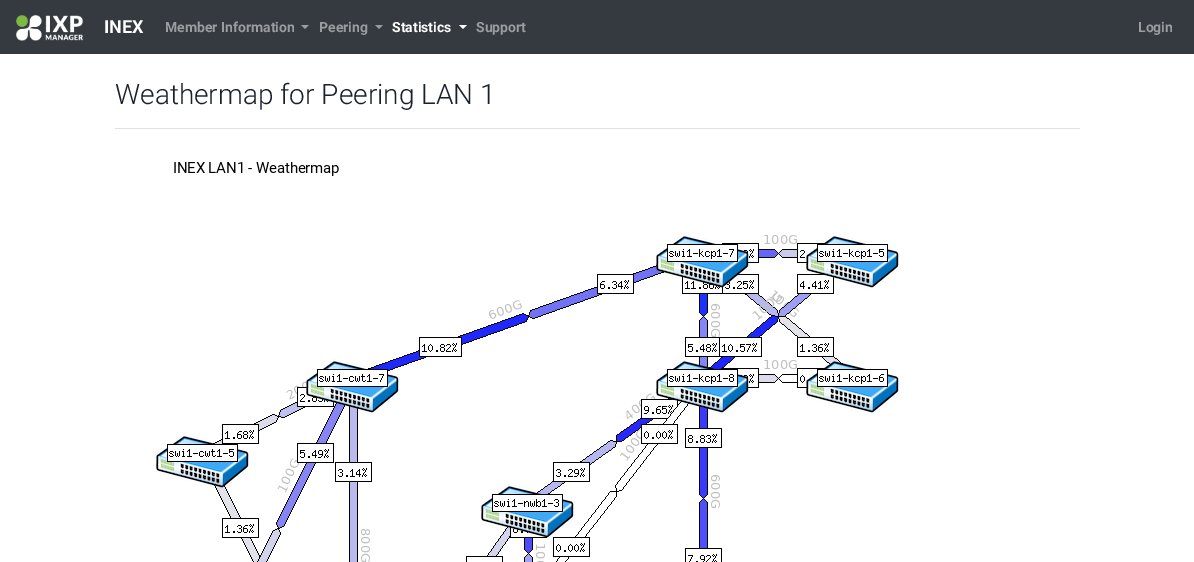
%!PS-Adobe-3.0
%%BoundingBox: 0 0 1194 562
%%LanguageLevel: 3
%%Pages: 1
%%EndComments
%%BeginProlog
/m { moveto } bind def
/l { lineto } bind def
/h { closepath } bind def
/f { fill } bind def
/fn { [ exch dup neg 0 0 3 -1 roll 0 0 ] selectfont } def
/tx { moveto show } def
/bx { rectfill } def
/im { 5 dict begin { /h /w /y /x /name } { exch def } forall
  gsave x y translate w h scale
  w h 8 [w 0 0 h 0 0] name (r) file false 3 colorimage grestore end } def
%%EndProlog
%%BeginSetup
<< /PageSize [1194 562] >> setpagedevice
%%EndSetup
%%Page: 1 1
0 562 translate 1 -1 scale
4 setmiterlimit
1 setgray
0 0 1194 562 bx
0.204 0.227 0.251 setrgbcolor
0 0 1194 54 bx
(image0.raw) 16 15 68 26 im
/Roboto-Bold 18 fn
1 setgray
(INEX) 104 33 tx
/Roboto-Bold 14 fn
0.604 0.616 0.627 setrgbcolor
(Member Information) 165 32 tx
301 25 m 309 25 l 305 29 l h f
(Peering) 319 32 tx
375 25 m 383 25 l 379 29 l h f
1 setgray
(Statistics) 392 32 tx
459 25 m 467 25 l 463 29 l h f
0.604 0.616 0.627 setrgbcolor
(Support) 476 32 tx
(Login) 1138 32 tx
0.871 0.886 0.902 setrgbcolor
115 128 965 1 bx
/Roboto-Light 28 fn
0.102 0.125 0.173 setrgbcolor
(Weathermap for Peering LAN 1) 115 104 tx
(image1.raw) 156 162 743 400 im
showpage
%%EOF
